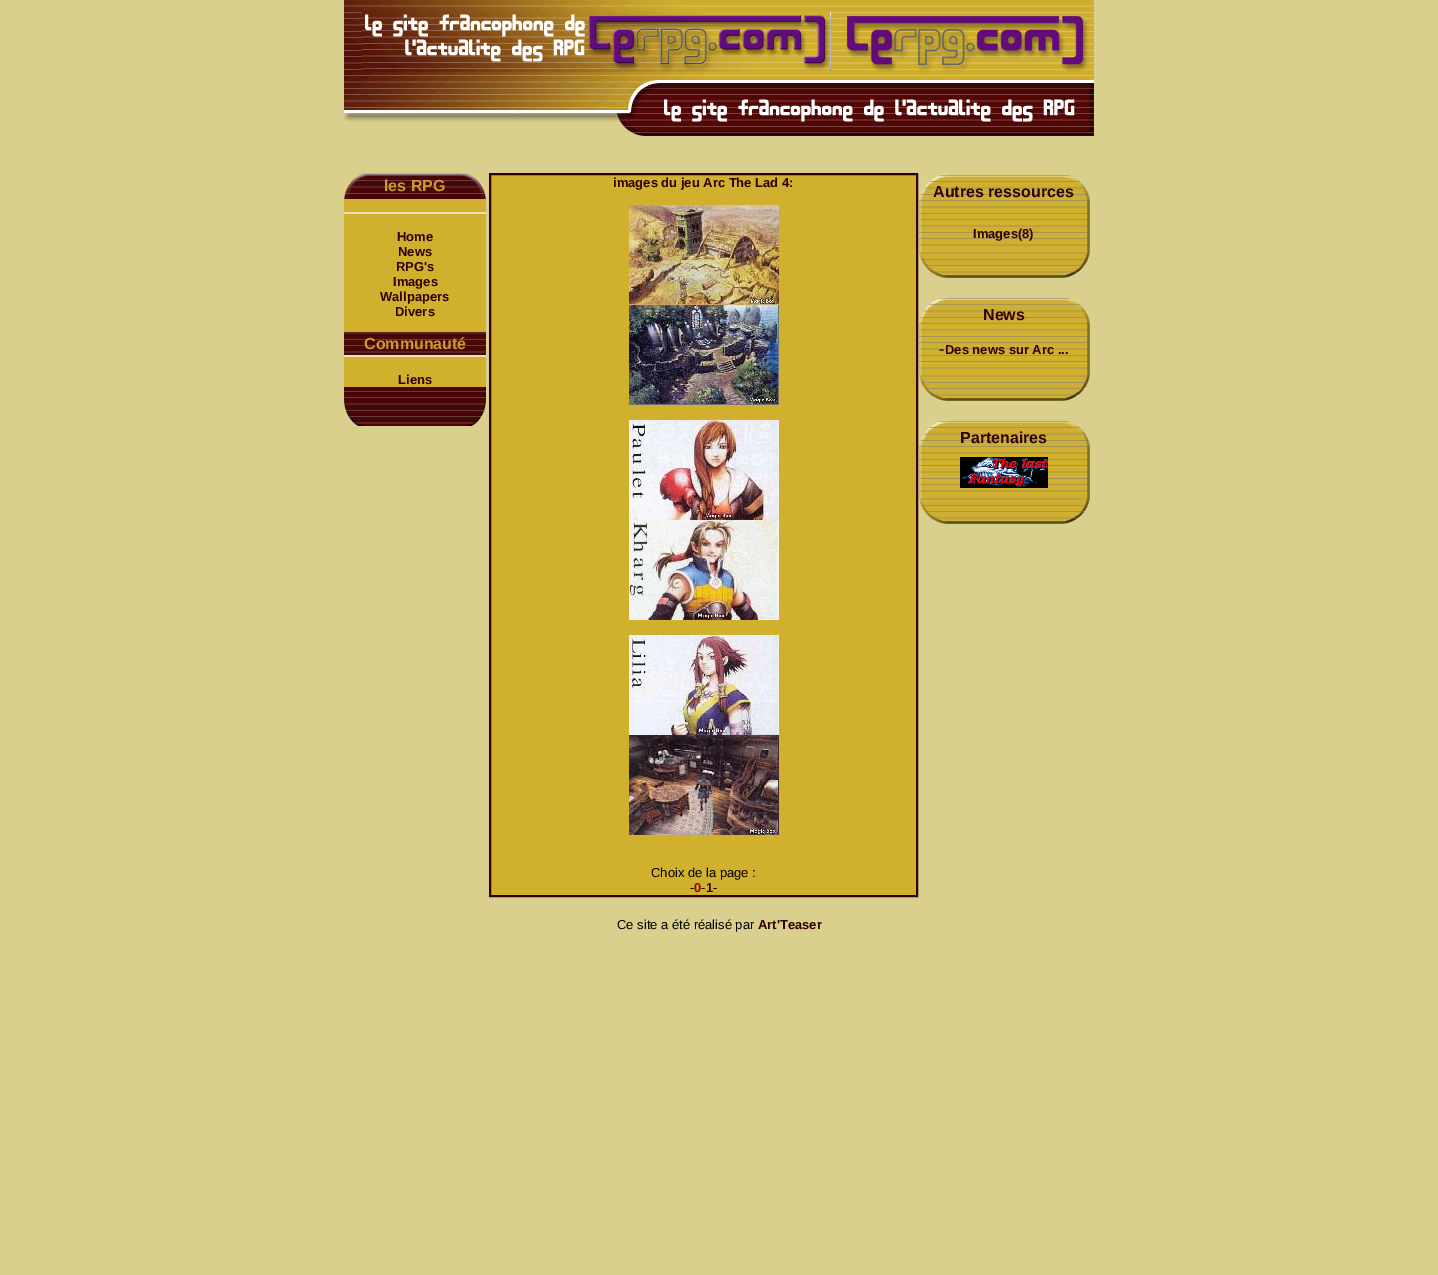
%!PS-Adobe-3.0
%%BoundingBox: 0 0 1438 1275
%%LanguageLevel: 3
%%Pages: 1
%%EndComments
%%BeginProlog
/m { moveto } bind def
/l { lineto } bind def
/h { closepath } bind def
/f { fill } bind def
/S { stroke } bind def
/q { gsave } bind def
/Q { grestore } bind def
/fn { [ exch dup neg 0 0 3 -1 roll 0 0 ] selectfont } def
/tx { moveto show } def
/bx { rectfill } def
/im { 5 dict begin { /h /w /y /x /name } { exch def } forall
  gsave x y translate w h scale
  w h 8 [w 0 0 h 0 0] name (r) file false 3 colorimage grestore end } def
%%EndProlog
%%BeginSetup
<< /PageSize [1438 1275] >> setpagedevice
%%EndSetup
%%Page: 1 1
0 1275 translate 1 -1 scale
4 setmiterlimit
0.855 0.816 0.553 setrgbcolor
0 0 1438 1275 bx
(image0.raw) 344 0 750 12 im
(image1.raw) 344 12 18 60 im
(image2.raw) 362 12 468 60 im
(image3.raw) 830 12 264 60 im
(image4.raw) 344 72 750 64 im
(image5.raw) 344 173 142 26 im
/LiberationSans-Bold 16 fn
0.8 0.6 0.2 setrgbcolor
(les RPG) 384 191 tx
0.82 0.69 0.18 setrgbcolor
344 199 142 133 bx
0.937 0.894 0.722 setrgbcolor
344 212 142 2 bx
/LiberationSans-Bold 13 fn
0.2 0 0 setrgbcolor
(Home) 397 241 tx
(News) 398 256 tx
(RPG's) 396 271 tx
(Images) 393 286 tx
(Wallpapers) 380 301 tx
(Divers) 395 316 tx
(image6.raw) 344 332 142 23 im
/LiberationSans-Bold 16 fn
0.8 0.6 0.2 setrgbcolor
(Communauté) 364 349 tx
0.82 0.69 0.18 setrgbcolor
344 357 142 30 bx
0.937 0.894 0.722 setrgbcolor
344 355 142 2 bx
/LiberationSans-Bold 13 fn
0.2 0 0 setrgbcolor
(Liens) 398 384 tx
(image7.raw) 344 387 142 39 im
489.5 173.5 428 723 rectstroke
0.82 0.69 0.18 setrgbcolor
490.5 174.5 m 916.5 174.5 l 916.5 895.5 l 490.5 895.5 l h q f Q
0.2 0 0 setrgbcolor
S
(images du jeu Arc The Lad 4:) 613 187 tx
(image8.raw) 629 205 150 100 im
(image9.raw) 629 305 150 100 im
(image10.raw) 629 420 150 100 im
(image11.raw) 629 520 150 100 im
(image12.raw) 629 635 150 100 im
(image13.raw) 629 735 150 100 im
/LiberationSans-Regular 13 fn
0 setgray
(Choix de la page :) 651 877 tx
(-) 690 892 tx
/LiberationSans-Bold 13 fn
0.6 0 0 setrgbcolor
(0) 694 892 tx
/LiberationSans-Regular 13 fn
0 setgray
(-) 701 892 tx
/LiberationSans-Bold 13 fn
0.2 0 0 setrgbcolor
(1) 706 892 tx
/LiberationSans-Regular 13 fn
0 setgray
(-) 713 892 tx
(image14.raw) 919 174 171 27 im
/LiberationSans-Bold 16 fn
0.2 0 0 setrgbcolor
(Autres ressources) 933 197 tx
(image15.raw) 919 201 171 50 im
/LiberationSans-Bold 13 fn
(Images\(8\)) 973 238 tx
(image16.raw) 919 251 171 27 im
(image14.raw) 919 297 171 27 im
/LiberationSans-Bold 16 fn
(News) 983 320 tx
(image15.raw) 919 324 171 50 im
/LiberationSerif-Regular 16 fn
0 setgray
(-) 939 354 tx
/LiberationSans-Bold 13 fn
0.2 0 0 setrgbcolor
(Des news sur Arc ...) 945 354 tx
(image16.raw) 919 374 171 27 im
(image14.raw) 919 420 171 27 im
/LiberationSans-Bold 16 fn
(Partenaires) 960 443 tx
(image15.raw) 919 447 171 50 im
(image17.raw) 960 457 88 31 im
(image16.raw) 919 497 171 27 im
/LiberationSans-Regular 13 fn
0 setgray
(Ce site a été réalisé par) 617 929 tx
/LiberationSans-Bold 13 fn
0.2 0 0 setrgbcolor
(Art'Teaser) 758 929 tx
showpage
%%EOF
